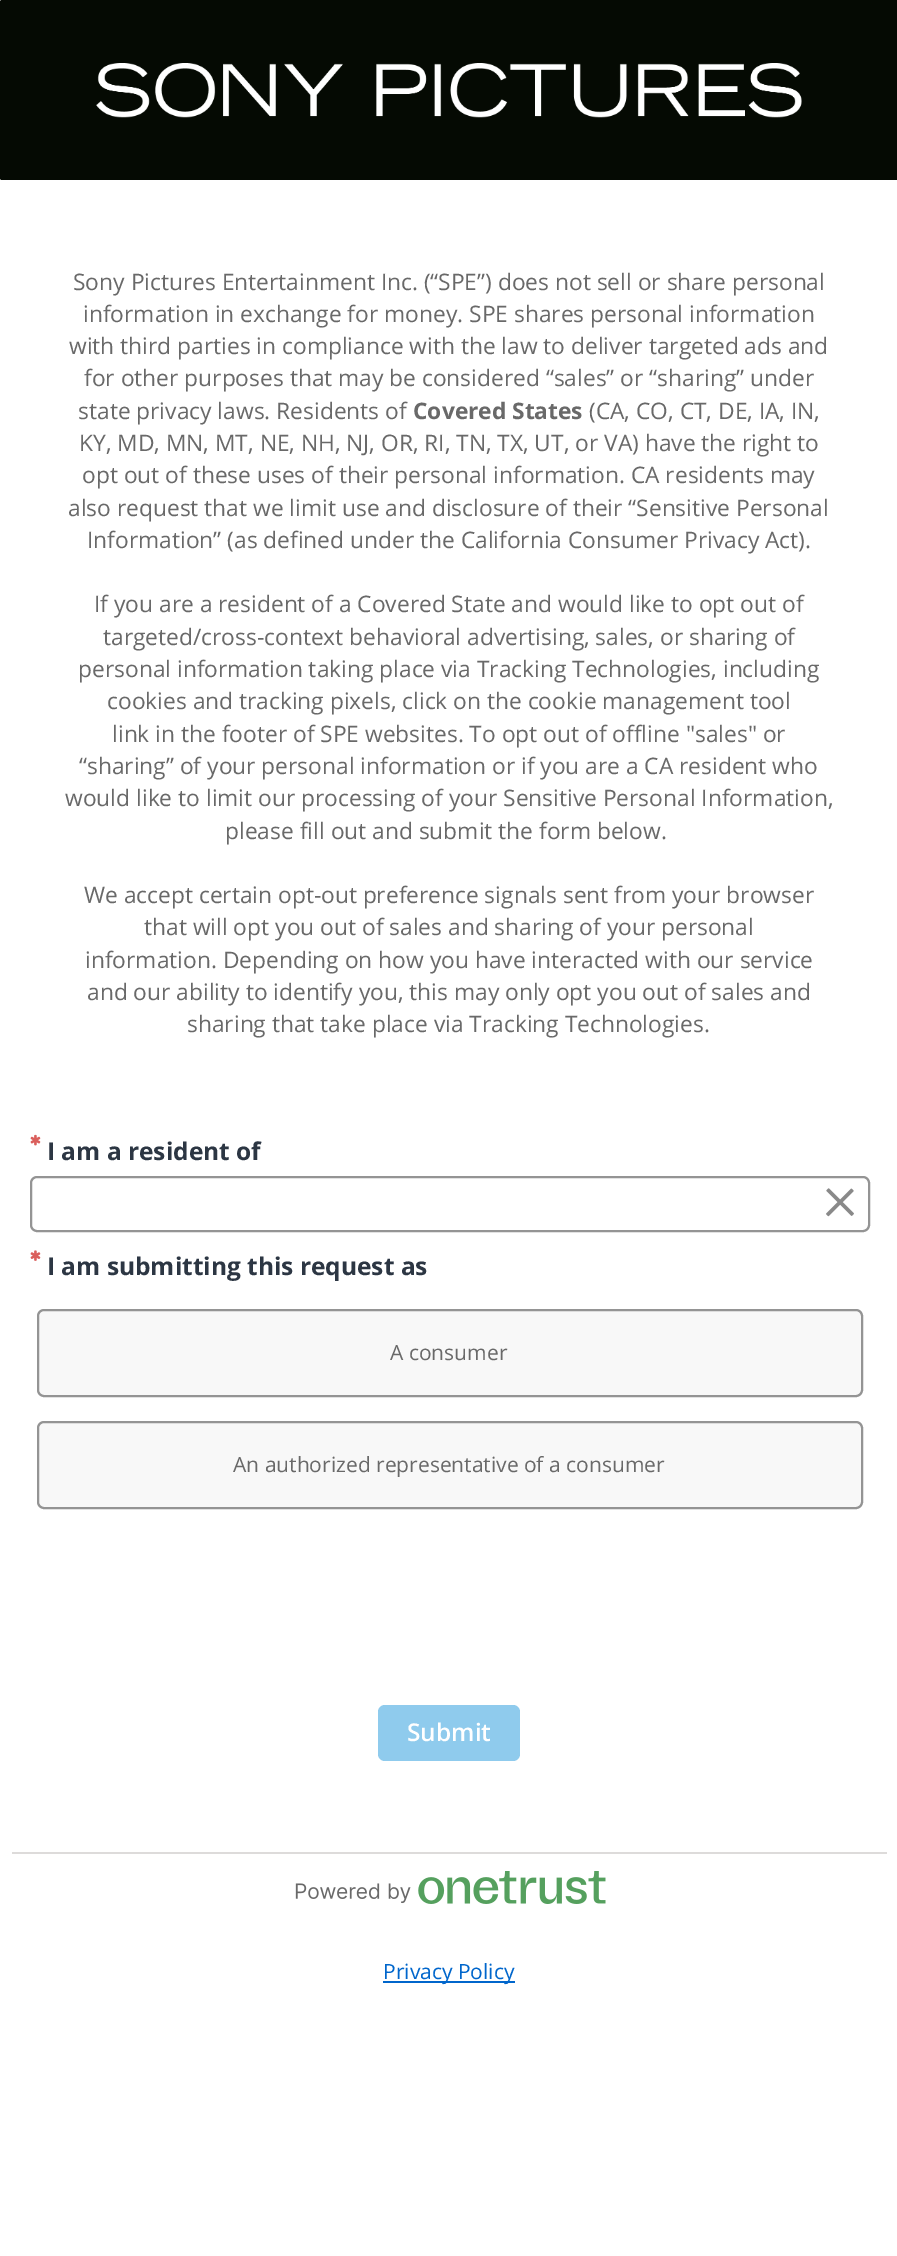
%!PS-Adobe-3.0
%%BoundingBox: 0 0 897 2256
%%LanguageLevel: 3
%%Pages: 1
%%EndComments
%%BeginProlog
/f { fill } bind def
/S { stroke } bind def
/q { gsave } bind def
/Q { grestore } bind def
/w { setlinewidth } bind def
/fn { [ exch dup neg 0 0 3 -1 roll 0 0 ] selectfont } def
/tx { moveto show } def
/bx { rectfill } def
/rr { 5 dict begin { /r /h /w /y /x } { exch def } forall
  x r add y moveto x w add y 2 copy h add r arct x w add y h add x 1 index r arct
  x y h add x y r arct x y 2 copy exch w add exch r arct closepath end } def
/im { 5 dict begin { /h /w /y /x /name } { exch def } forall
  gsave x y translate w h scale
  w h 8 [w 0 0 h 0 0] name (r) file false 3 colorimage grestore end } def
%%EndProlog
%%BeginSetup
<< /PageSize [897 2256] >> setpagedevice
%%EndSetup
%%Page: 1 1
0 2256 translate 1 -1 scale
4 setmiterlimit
1 setgray
0 0 897 2256 bx
0.02 0.039 0.012 setrgbcolor
0 0 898 180 2 rr f
(image0.raw) 96 63 706 55 im
/OpenSans-Regular 22.75 fn
0.412 setgray
(Sony Pictures Entertainment Inc. \(“SPE”\) does not sell or share personal) 73 290 tx
(information in exchange for money. SPE shares personal information) 83 322 tx
(with third parties in compliance with the law to deliver targeted ads and) 69 354 tx
(for other purposes that may be considered “sales” or “sharing” under) 84 386 tx
(state privacy laws. Residents of) 78 419 tx
/OpenSans-Bold 22.75 fn
(Covered States) 413 419 tx
/OpenSans-Regular 22.75 fn
(\(CA, CO, CT, DE, IA, IN,) 589 419 tx
(KY, MD, MN, MT, NE, NH, NJ, OR, RI, TN, TX, UT, or VA\) have the right to) 79 451 tx
(opt out of these uses of their personal information. CA residents may) 82 483 tx
(also request that we limit use and disclosure of their “Sensitive Personal) 68 516 tx
(Information” \(as defined under the California Consumer Privacy Act\).) 87 548 tx
(If you are a resident of a Covered State and would like to opt out of) 94 612 tx
(targeted/cross-context behavioral advertising, sales, or sharing of) 103 645 tx
(personal information taking place via Tracking Technologies, including) 78 677 tx
(cookies and tracking pixels, click on the cookie management tool) 107 709 tx
(link in the footer of SPE websites. To opt out of offline "sales" or) 112 742 tx
(“sharing” of your personal information or if you are a CA resident who) 79 774 tx
(would like to limit our processing of your Sensitive Personal Information,) 65 806 tx
(please fill out and submit the form below.) 225 839 tx
(We accept certain opt-out preference signals sent from your browser) 84 903 tx
(that will opt you out of sales and sharing of your personal) 144 935 tx
(information. Depending on how you have interacted with our service) 85 968 tx
(and our ability to identify you, this may only opt you out of sales and) 87 1000 tx
(sharing that take place via Tracking Technologies.) 187 1032 tx
(image1.raw) 30 1134 11 12 im
/OpenSans-Bold 24.5 fn
0.173 0.212 0.263 setrgbcolor
(I am a resident of) 47 1160 tx
0.58 setgray
2 w
31 1177 838 54 6 rr S
(image2.raw) 826 1188 28 29 im
(image3.raw) 30 1250 11 11 im
0.173 0.212 0.263 setrgbcolor
(I am submitting this request as) 47 1275 tx
0.973 setgray
38 1310 824 86 6 rr q f Q
0.58 setgray
S
/OpenSans-Regular 21 fn
0.412 setgray
(A consumer) 390 1360 tx
0.973 setgray
38 1422 824 86 6 rr q f Q
0.58 setgray
S
0.412 setgray
(An authorized representative of a consumer) 233 1472 tx
0.561 0.796 0.929 setrgbcolor
378 1705 142 56 7 rr f
/OpenSans-SemiBold 24.5 fn
1 setgray
(Submit) 407 1741 tx
0.867 0.859 0.855 setrgbcolor
12 1852 875 2 bx
(image4.raw) 295 1871 311 33 im
0 0.4 0.8 setrgbcolor
383 1981 132 2 bx
/OpenSans-Regular 21 fn
(Privacy Policy) 383 1979 tx
showpage
%%EOF
